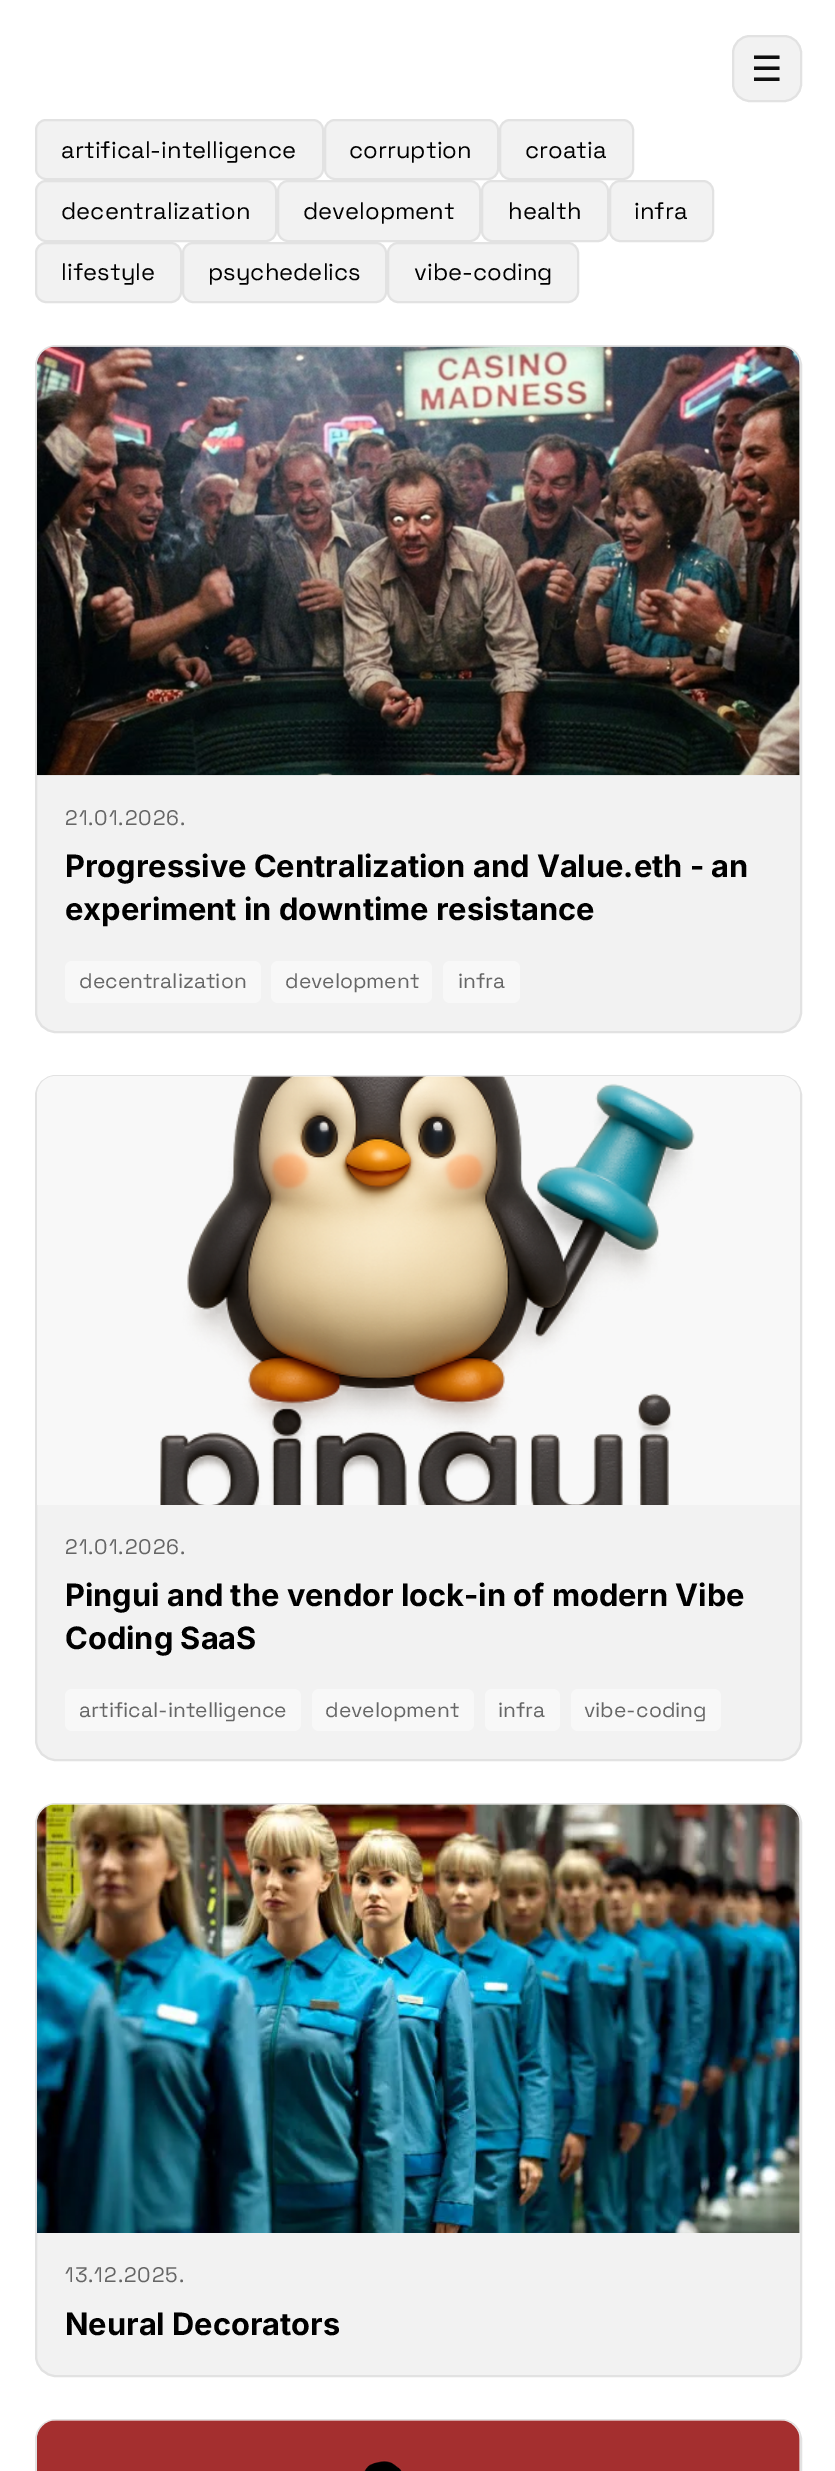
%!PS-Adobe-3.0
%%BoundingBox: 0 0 835 2471
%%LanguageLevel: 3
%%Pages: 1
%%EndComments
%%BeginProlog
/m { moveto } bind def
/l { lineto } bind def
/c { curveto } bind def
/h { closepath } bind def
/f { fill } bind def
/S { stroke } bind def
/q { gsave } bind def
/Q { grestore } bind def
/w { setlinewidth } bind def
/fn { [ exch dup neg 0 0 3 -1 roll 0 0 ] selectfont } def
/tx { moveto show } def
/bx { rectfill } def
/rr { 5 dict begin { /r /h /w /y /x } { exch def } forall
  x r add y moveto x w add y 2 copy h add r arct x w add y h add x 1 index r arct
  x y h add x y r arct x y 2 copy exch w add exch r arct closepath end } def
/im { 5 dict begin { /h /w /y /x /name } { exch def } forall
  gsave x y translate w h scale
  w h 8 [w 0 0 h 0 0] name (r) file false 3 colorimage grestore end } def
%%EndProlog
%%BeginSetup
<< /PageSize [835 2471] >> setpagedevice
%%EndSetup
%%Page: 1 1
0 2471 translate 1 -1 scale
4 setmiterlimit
1 setgray
0 0 835 2471 bx
0.949 setgray
733 36 68 65 17 rr q f Q
0.886 setgray
2 w
S
/DejaVuSans-Regular 35 fn
0.059 setgray
(☰) 751 81 tx
0.949 setgray
36 120 287 59 10 rr q f Q
0.886 setgray
S
/SpaceGrotesk-Regular 23.75 fn
0 setgray
(artifical-intelligence) 61 158 tx
0.949 setgray
325 120 173 59 10 rr q f Q
0.886 setgray
S
0 setgray
(corruption) 349 158 tx
0.949 setgray
500 120 133 59 10 rr q f Q
0.886 setgray
S
0 setgray
(croatia) 525 158 tx
0.949 setgray
36 181 240 60 10 rr q f Q
0.886 setgray
S
0 setgray
(decentralization) 61 219 tx
0.949 setgray
278 181 202 60 10 rr q f Q
0.886 setgray
S
0 setgray
(development) 303 219 tx
0.949 setgray
482 181 126 60 10 rr q f Q
0.886 setgray
S
0 setgray
(health) 508 219 tx
0.949 setgray
610 181 103 60 10 rr q f Q
0.886 setgray
S
0 setgray
(infra) 634 219 tx
0.949 setgray
36 243 145 59 10 rr q f Q
0.886 setgray
S
0 setgray
(lifestyle) 61 280 tx
0.949 setgray
183 243 203 59 10 rr q f Q
0.886 setgray
S
0 setgray
(psychedelics) 208 280 tx
0.949 setgray
388 243 190 59 10 rr q f Q
0.886 setgray
S
0 setgray
(vibe-coding) 414 280 tx
0.949 setgray
36 346 765 686 20 rr q f Q
0.886 setgray
S
0.973 setgray
56 347 m 781 347 l 791.5 347 800 355.5 800 366 c 800 775 l 37 775 l 37 366 l 37 355.5 45.5 347 56 347 c h f
(image0.raw) 37 346 763 430 im
/SpaceGrotesk-Regular 21 fn
0.4 setgray
65 825 m 0.9 0 (21.01.2026.) ashow
/Inter-Bold 30.8 fn
0 setgray
(Progressive Centralization and Value.eth - an) 65 877 tx
(experiment in downtime resistance) 65 920 tx
0.973 setgray
65 961 196 42 7 rr f
/SpaceGrotesk-Regular 21 fn
0.4 setgray
(decentralization) 79 988 tx
0.973 setgray
271 961 161 42 7 rr f
0.4 setgray
(development) 285 988 tx
0.973 setgray
443 961 77 42 7 rr f
0.4 setgray
(infra) 458 988 tx
0.949 setgray
36 1076 765 684 20 rr q f Q
0.886 setgray
S
0.973 setgray
56 1076 m 781 1076 l 791.5 1076 800 1084.5 800 1095 c 800 1505 l 37 1505 l 37 1095 l 37 1084.5 45.5 1076 56 1076 c h f
(image1.raw) 160 1076 535 429 im
0.4 setgray
65 1554 m 0.9 0 (21.01.2026.) ashow
/Inter-Bold 30.8 fn
0 setgray
(Pingui and the vendor lock-in of modern Vibe) 65 1606 tx
(Coding SaaS) 65 1649 tx
0.973 setgray
65 1689 236 42 7 rr f
/SpaceGrotesk-Regular 21 fn
0.4 setgray
(artifical-intelligence) 79 1717 tx
0.973 setgray
312 1689 162 42 7 rr f
0.4 setgray
(development) 325 1717 tx
0.973 setgray
485 1689 75 42 7 rr f
0.4 setgray
(infra) 498 1717 tx
0.973 setgray
571 1689 150 42 7 rr f
0.4 setgray
(vibe-coding) 584 1717 tx
0.949 setgray
36 1804 765 572 20 rr q f Q
0.886 setgray
S
0.973 setgray
56 1804 m 781 1804 l 791.5 1804 800 1812.5 800 1823 c 800 2233 l 37 2233 l 37 1823 l 37 1812.5 45.5 1804 56 1804 c h f
(image2.raw) 37 1804 763 429 im
0.4 setgray
65 2282 m 0.9 0 (13.12.2025.) ashow
/Inter-Bold 30.8 fn
0 setgray
(Neural Decorators) 65 2335 tx
0.886 setgray
36 2420 765 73 20 rr S
0.973 setgray
56 2420 m 781 2420 l 791.5 2420 800 2428.5 800 2439 c 800 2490 l 37 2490 l 37 2439 l 37 2428.5 45.5 2420 56 2420 c h f
(image3.raw) 37 2420 763 51 im
showpage
%%EOF
